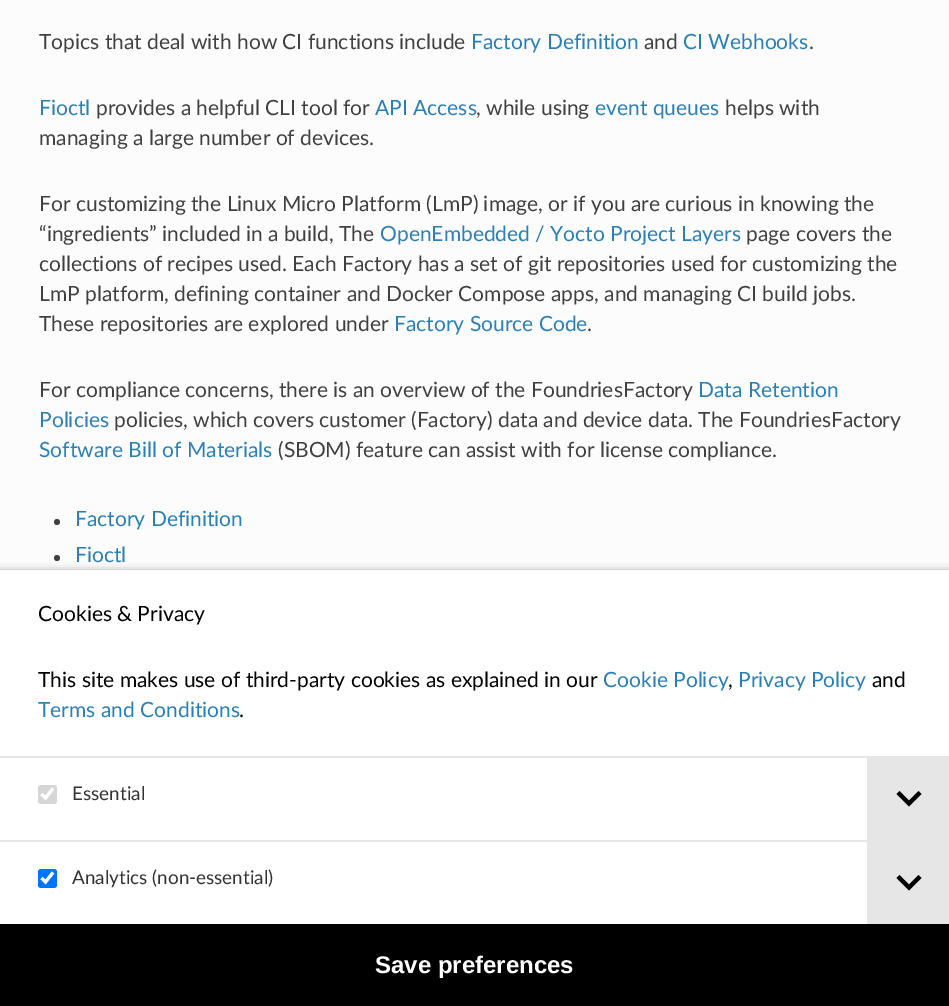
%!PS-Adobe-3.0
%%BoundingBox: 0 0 949 1006
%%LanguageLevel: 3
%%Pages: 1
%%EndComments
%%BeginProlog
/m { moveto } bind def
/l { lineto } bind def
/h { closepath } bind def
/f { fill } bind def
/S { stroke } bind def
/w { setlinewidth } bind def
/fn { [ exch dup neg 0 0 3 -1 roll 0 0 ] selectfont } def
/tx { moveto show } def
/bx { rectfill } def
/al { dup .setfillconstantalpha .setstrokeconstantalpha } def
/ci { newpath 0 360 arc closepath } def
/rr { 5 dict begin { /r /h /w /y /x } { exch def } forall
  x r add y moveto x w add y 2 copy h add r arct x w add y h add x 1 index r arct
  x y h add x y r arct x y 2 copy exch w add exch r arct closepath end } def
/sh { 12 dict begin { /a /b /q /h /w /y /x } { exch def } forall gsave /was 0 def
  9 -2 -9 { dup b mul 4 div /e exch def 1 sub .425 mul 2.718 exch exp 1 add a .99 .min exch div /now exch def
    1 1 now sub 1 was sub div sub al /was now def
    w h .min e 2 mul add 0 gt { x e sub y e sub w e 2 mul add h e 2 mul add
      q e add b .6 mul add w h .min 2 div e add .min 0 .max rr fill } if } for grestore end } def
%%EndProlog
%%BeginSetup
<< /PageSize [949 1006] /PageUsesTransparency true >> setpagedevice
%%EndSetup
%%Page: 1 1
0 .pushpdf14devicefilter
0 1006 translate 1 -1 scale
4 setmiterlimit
0.988 setgray
0 0 949 1006 bx
/Lato-Regular 21 fn
0.251 setgray
(Topics that deal with how CI functions include) 39 49 tx
0.161 0.502 0.725 setrgbcolor
(Factory Definition) 471 49 tx
0.251 setgray
(and) 644 49 tx
0.161 0.502 0.725 setrgbcolor
(CI Webhooks) 683 49 tx
0.251 setgray
(.) 809 49 tx
0.161 0.502 0.725 setrgbcolor
(Fioctl) 39 115 tx
0.251 setgray
(provides a helpful CLI tool for) 96 115 tx
0.161 0.502 0.725 setrgbcolor
(API Access) 375 115 tx
0.251 setgray
(, while using) 476 115 tx
0.161 0.502 0.725 setrgbcolor
(event queues) 595 115 tx
0.251 setgray
(helps with) 725 115 tx
(managing a large number of devices.) 39 145 tx
(For customizing the Linux Micro Platform \(LmP\) image, or if you are curious in knowing the) 39 211 tx
(“ingredients” included in a build, The) 39 241 tx
0.161 0.502 0.725 setrgbcolor
(OpenEmbedded / Yocto Project Layers) 380 241 tx
0.251 setgray
(page covers the) 746 241 tx
(collections of recipes used. Each Factory has a set of git repositories used for customizing the) 39 271 tx
(LmP platform, defining container and Docker Compose apps, and managing CI build jobs.) 39 301 tx
(These repositories are explored under) 39 331 tx
0.161 0.502 0.725 setrgbcolor
(Factory Source Code) 394 331 tx
0.251 setgray
(.) 587 331 tx
(For compliance concerns, there is an overview of the FoundriesFactory) 39 397 tx
0.161 0.502 0.725 setrgbcolor
(Data Retention) 698 397 tx
(Policies) 39 427 tx
0.251 setgray
(policies, which covers customer \(Factory\) data and device data. The FoundriesFactory) 114 427 tx
0.161 0.502 0.725 setrgbcolor
(Software Bill of Materials) 39 457 tx
0.251 setgray
(\(SBOM\) feature can assist with for license compliance.) 278 457 tx
57 522 3 ci f
0.161 0.502 0.725 setrgbcolor
(Factory Definition) 75 526 tx
0.251 setgray
57 558 3 ci f
0.161 0.502 0.725 setrgbcolor
(Fioctl) 75 562 tx
0 setgray
0 570 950 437 0 4 0.3 sh
1 setgray
0 570 949 354 bx
0 setgray
(Cookies & Privacy) 38 621 tx
(This site makes use of third-party cookies as explained in our) 38 687 tx
0.161 0.502 0.725 setrgbcolor
(Cookie Policy) 603 687 tx
0 setgray
(,) 728 687 tx
0.161 0.502 0.725 setrgbcolor
(Privacy Policy) 738 687 tx
0 setgray
(and) 872 687 tx
0.161 0.502 0.725 setrgbcolor
(Terms and Conditions) 38 717 tx
0 setgray
(.) 239 717 tx
0.902 setgray
0 756 949 2 bx
0.839 setgray
38 785 19 19 3 rr f
1 setgray
3.1 w
41.5 794 m 45.5 798 l 53 788.5 l S
/Lato-Regular 18.9 fn
0.2 setgray
(Essential) 72 800 tx
0.902 setgray
867 758 82 82 bx
0 setgray
918.5 791 m 921.5 794 l 909 806.5 l 896.5 794 l 899.5 791 l 909 800.5 l h f
0.902 setgray
0 840 949 2 bx
0 0.459 1 setrgbcolor
38 869 19 19 3 rr f
1 setgray
41.5 878 m 45.5 882 l 53 872.5 l S
0.2 setgray
(Analytics \(non-essential\)) 72 884 tx
0.902 setgray
867 842 82 82 bx
0 setgray
918.5 875 m 921.5 878 l 909 890.5 l 896.5 878 l 899.5 875 l 909 884.5 l h f
0 924 949 82 bx
/LiberationSans-Bold 24 fn
1 setgray
(Save preferences) 375 973 tx
.poppdf14devicefilter showpage
%%EOF
